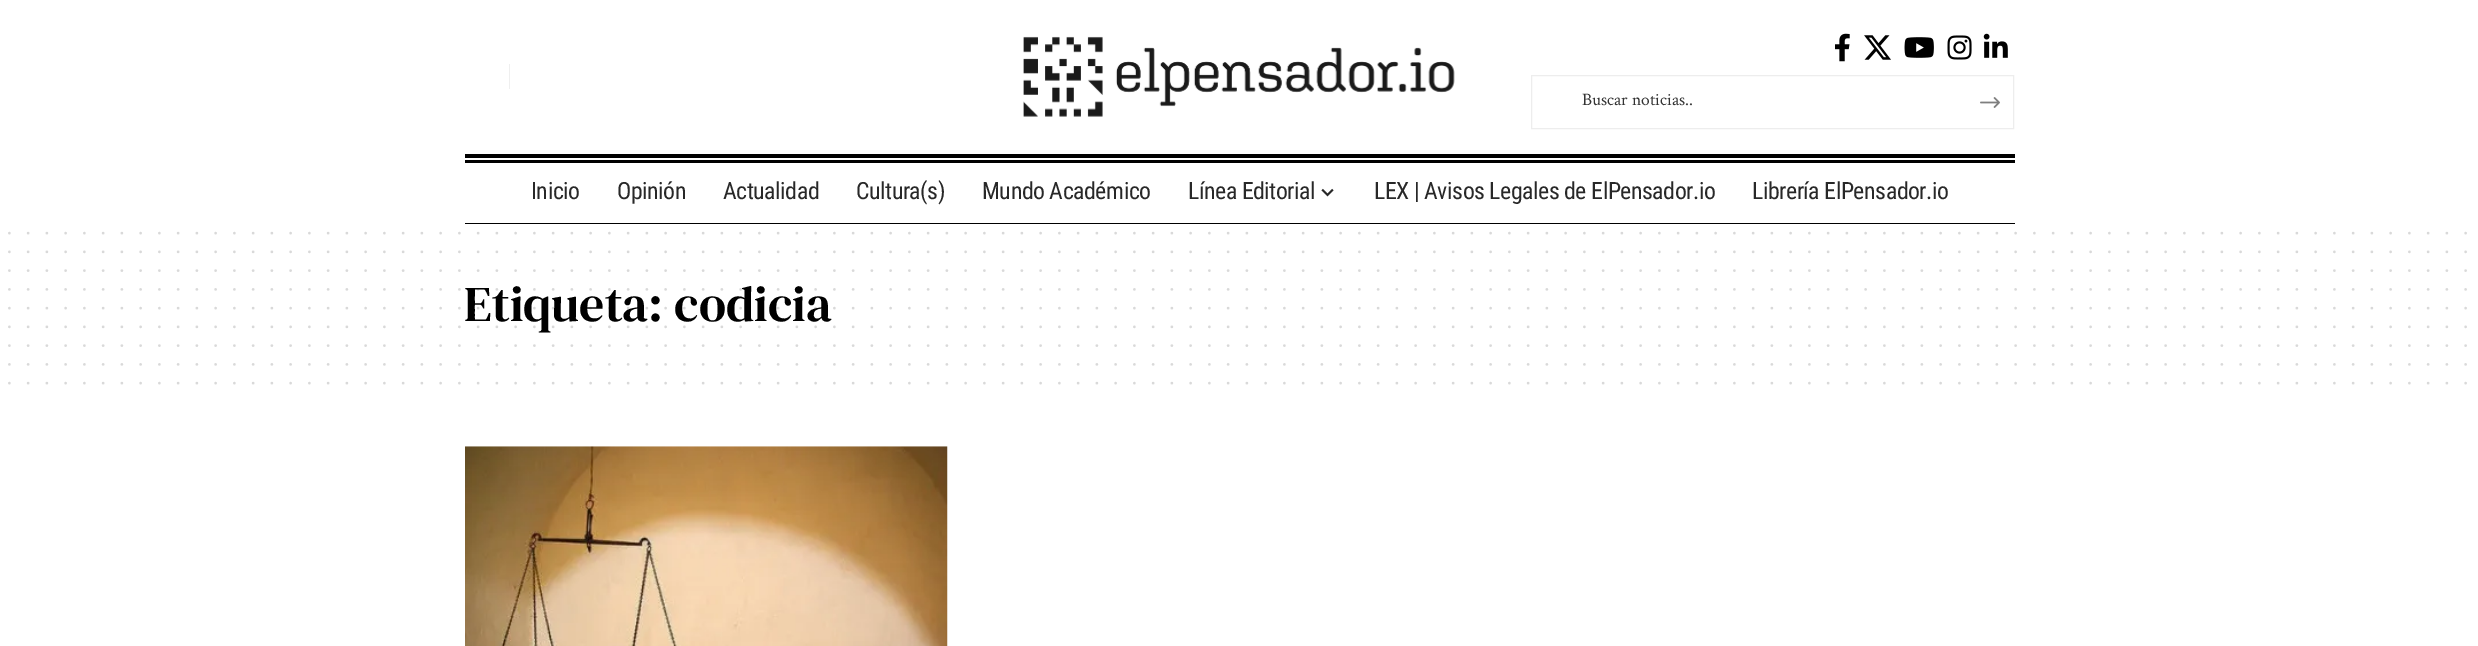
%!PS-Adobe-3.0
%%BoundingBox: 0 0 2478 646
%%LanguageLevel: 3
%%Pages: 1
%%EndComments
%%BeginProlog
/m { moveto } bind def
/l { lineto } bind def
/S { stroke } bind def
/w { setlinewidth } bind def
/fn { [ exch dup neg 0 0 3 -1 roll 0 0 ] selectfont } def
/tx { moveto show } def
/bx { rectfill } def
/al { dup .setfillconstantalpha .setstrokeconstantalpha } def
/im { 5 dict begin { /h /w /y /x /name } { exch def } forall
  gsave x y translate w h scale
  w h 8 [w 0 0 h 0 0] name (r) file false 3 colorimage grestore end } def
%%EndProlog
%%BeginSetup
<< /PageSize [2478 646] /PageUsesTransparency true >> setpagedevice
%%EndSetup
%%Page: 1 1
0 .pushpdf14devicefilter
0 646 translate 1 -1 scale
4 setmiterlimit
1 setgray
0 0 2478 646 bx
0.937 setgray
509 64 1 25 bx
(image0.raw) 1023 36 432 81 im
(image1.raw) 1835 33 15 29 im
(image2.raw) 1864 35 27 25 im
(image3.raw) 1904 37 30 21 im
(image4.raw) 1947 35 25 25 im
(image5.raw) 1983 33 25 25 im
0.929 setgray
1531.5 75.5 482 53 rectstroke
/CrimsonText-Regular 17.5 fn
0.2 setgray
(Buscar noticias..) 1582 105 tx
(image6.raw) 1980 97 20 11 im
0 setgray
465 154 1550 4 bx
465 160 1550 3 bx
465 223 1550 1 bx
/RobotoCondensed-Regular 23.75 fn
0.157 setgray
531 199 m -0.45 0 (Inicio) ashow
617 199 m -0.45 0 (Opinión) ashow
723 199 m -0.45 0 (Actualidad) ashow
856 199 m -0.45 0 (Cultura\(s\)) ashow
982 199 m -0.45 0 (Mundo Académico) ashow
1188 199 m -0.45 0 (Línea Editorial) ashow
(image7.raw) 1321 188 13 9 im
1374 199 m -0.45 0 (LEX | Avisos Legales de ElPensador.io) ashow
1752 199 m -0.45 0 (Librería ElPensador.io) ashow
0.851 setgray
2.5 w
1 setlinecap
[0 18.75] 0 setdash
9.4 233.1 m 2465.9 233.1 l S
9.4 251.9 m 2465.9 251.9 l S
9.4 270.6 m 2465.9 270.6 l S
/DMSerifText-Regular 50 fn
0 setgray
(Etiqueta: codicia) 464 321 tx
0.15 al
9.4 289.4 m 2465.9 289.4 l S
9.4 308.1 m 2465.9 308.1 l S
1 al
0.851 setgray
9.4 326.9 m 2465.9 326.9 l S
9.4 345.6 m 2465.9 345.6 l S
9.4 364.4 m 2465.9 364.4 l S
9.4 383.1 m 2465.9 383.1 l S
(image8.raw) 465 446 483 200 im
.poppdf14devicefilter showpage
%%EOF
